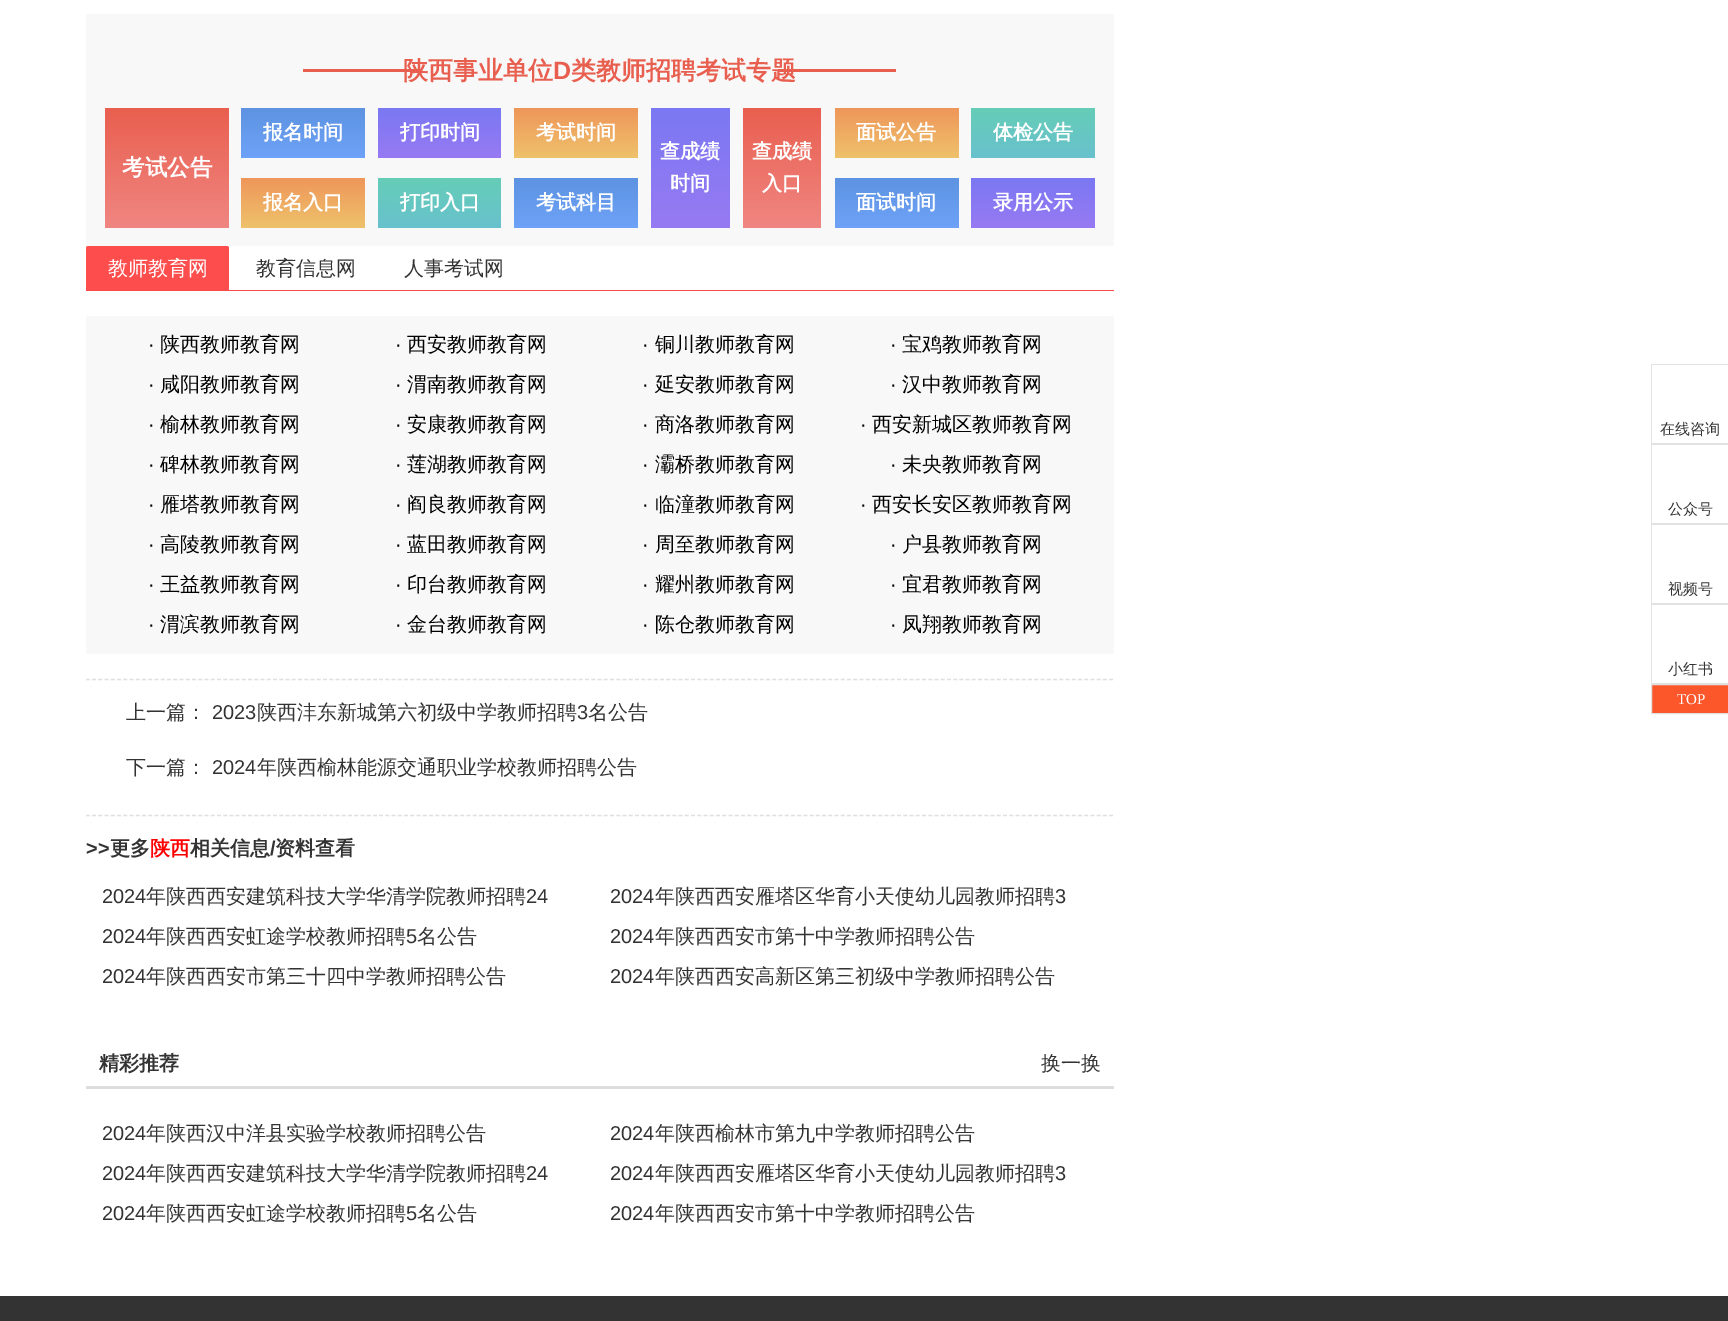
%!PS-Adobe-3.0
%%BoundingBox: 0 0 1728 1321
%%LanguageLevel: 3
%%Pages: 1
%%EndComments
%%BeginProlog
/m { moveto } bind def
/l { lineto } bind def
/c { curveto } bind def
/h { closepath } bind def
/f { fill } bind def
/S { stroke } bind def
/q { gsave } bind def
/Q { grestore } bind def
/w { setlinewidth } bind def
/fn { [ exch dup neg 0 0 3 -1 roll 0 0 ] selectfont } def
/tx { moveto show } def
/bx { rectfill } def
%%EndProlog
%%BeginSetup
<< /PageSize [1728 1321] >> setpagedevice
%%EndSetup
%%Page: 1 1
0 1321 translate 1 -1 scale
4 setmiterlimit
1 setgray
0 0 1728 1321 bx
0.973 setgray
86 14 1028 232 bx
0.914 0.373 0.31 setrgbcolor
303 69 118 3 bx
/WenQuanYiZenHei-Bold 25 fn
(陕西事业单位) 403 79 tx
/LiberationSans-Bold 25 fn
(D) 553 79 tx
/WenQuanYiZenHei-Bold 25 fn
(类教师招聘考试专题) 571 79 tx
778 69 118 3 bx
q 105 108 m 229 108 l 229 228 l 105 228 l h clip newpath
<< /ShadingType 2 /ColorSpace /DeviceRGB /Coords [167 108 167 228] /Extend [true true] /Function << /FunctionType 2 /Domain [0 1] /C0 [0.914 0.373 0.31] /C1 [0.941 0.525 0.51] /N 1 >> >> shfill Q
/WenQuanYiZenHei-Bold 22.5 fn
1 setgray
(考试公告) 122 175 tx
q 241 108 m 365 108 l 365 158 l 241 158 l h clip newpath
<< /ShadingType 2 /ColorSpace /DeviceRGB /Coords [303 108 303 158] /Extend [true true] /Function << /FunctionType 2 /Domain [0 1] /C0 [0.365 0.576 0.882] /C1 [0.431 0.635 0.973] /N 1 >> >> shfill Q
/WenQuanYiZenHei-Bold 20 fn
(报名时间) 263 139 tx
q 241 178 m 365 178 l 365 228 l 241 228 l h clip newpath
<< /ShadingType 2 /ColorSpace /DeviceRGB /Coords [303 178 303 228] /Extend [true true] /Function << /FunctionType 2 /Domain [0 1] /C0 [0.937 0.588 0.353] /C1 [0.933 0.761 0.42] /N 1 >> >> shfill Q
(报名入口) 263 209 tx
q 378 108 m 501 108 l 501 158 l 378 158 l h clip newpath
<< /ShadingType 2 /ColorSpace /DeviceRGB /Coords [439 108 439 158] /Extend [true true] /Function << /FunctionType 2 /Domain [0 1] /C0 [0.478 0.471 0.953] /C1 [0.592 0.478 0.949] /N 1 >> >> shfill Q
(打印时间) 400 139 tx
q 378 178 m 501 178 l 501 228 l 378 228 l h clip newpath
<< /ShadingType 2 /ColorSpace /DeviceRGB /Coords [439 178 439 228] /Extend [true true] /Function << /FunctionType 2 /Domain [0 1] /C0 [0.396 0.804 0.718] /C1 [0.408 0.757 0.804] /N 1 >> >> shfill Q
(打印入口) 400 209 tx
q 514 108 m 638 108 l 638 158 l 514 158 l h clip newpath
<< /ShadingType 2 /ColorSpace /DeviceRGB /Coords [576 108 576 158] /Extend [true true] /Function << /FunctionType 2 /Domain [0 1] /C0 [0.937 0.588 0.353] /C1 [0.933 0.761 0.42] /N 1 >> >> shfill Q
(考试时间) 536 139 tx
q 514 178 m 638 178 l 638 228 l 514 228 l h clip newpath
<< /ShadingType 2 /ColorSpace /DeviceRGB /Coords [576 178 576 228] /Extend [true true] /Function << /FunctionType 2 /Domain [0 1] /C0 [0.365 0.576 0.882] /C1 [0.431 0.635 0.973] /N 1 >> >> shfill Q
(考试科目) 536 209 tx
q 651 108 m 730 108 l 730 228 l 651 228 l h clip newpath
<< /ShadingType 2 /ColorSpace /DeviceRGB /Coords [691 108 691 228] /Extend [true true] /Function << /FunctionType 2 /Domain [0 1] /C0 [0.478 0.471 0.953] /C1 [0.592 0.478 0.949] /N 1 >> >> shfill Q
(查成绩) 660 158 tx
(时间) 670 190 tx
q 743 108 m 821 108 l 821 228 l 743 228 l h clip newpath
<< /ShadingType 2 /ColorSpace /DeviceRGB /Coords [782 108 782 228] /Extend [true true] /Function << /FunctionType 2 /Domain [0 1] /C0 [0.914 0.373 0.31] /C1 [0.941 0.525 0.51] /N 1 >> >> shfill Q
(查成绩) 752 158 tx
(入口) 762 190 tx
q 835 108 m 959 108 l 959 158 l 835 158 l h clip newpath
<< /ShadingType 2 /ColorSpace /DeviceRGB /Coords [897 108 897 158] /Extend [true true] /Function << /FunctionType 2 /Domain [0 1] /C0 [0.937 0.588 0.353] /C1 [0.933 0.761 0.42] /N 1 >> >> shfill Q
(面试公告) 856 139 tx
q 835 178 m 959 178 l 959 228 l 835 228 l h clip newpath
<< /ShadingType 2 /ColorSpace /DeviceRGB /Coords [897 178 897 228] /Extend [true true] /Function << /FunctionType 2 /Domain [0 1] /C0 [0.365 0.576 0.882] /C1 [0.431 0.635 0.973] /N 1 >> >> shfill Q
(面试时间) 856 209 tx
q 971 108 m 1095 108 l 1095 158 l 971 158 l h clip newpath
<< /ShadingType 2 /ColorSpace /DeviceRGB /Coords [1033 108 1033 158] /Extend [true true] /Function << /FunctionType 2 /Domain [0 1] /C0 [0.396 0.804 0.718] /C1 [0.408 0.757 0.804] /N 1 >> >> shfill Q
(体检公告) 993 139 tx
q 971 178 m 1095 178 l 1095 228 l 971 228 l h clip newpath
<< /ShadingType 2 /ColorSpace /DeviceRGB /Coords [1033 178 1033 228] /Extend [true true] /Function << /FunctionType 2 /Domain [0 1] /C0 [0.478 0.471 0.953] /C1 [0.592 0.478 0.949] /N 1 >> >> shfill Q
(录用公示) 993 209 tx
0.984 0.282 0.282 setrgbcolor
86 290 1028 1 bx
0.992 0.302 0.302 setrgbcolor
88.5 246 m 226.5 246 l 228 246 229 247 229 248.5 c 229 290 l 86 290 l 86 248.5 l 86 247 87 246 88.5 246 c h f
/WenQuanYiZenHei-Medium 20 fn
1 setgray
(教师教育网) 108 275 tx
0.2 setgray
(教育信息网) 256 275 tx
(人事考试网) 404 275 tx
0.973 setgray
86 316 1028 338 bx
/LiberationSans-Regular 20 fn
0 setgray
(·) 148 351 tx
/WenQuanYiZenHei-Medium 20 fn
(陕西教师教育网) 160 351 tx
/LiberationSans-Regular 20 fn
(·) 395 351 tx
/WenQuanYiZenHei-Medium 20 fn
(西安教师教育网) 407 351 tx
/LiberationSans-Regular 20 fn
(·) 642 351 tx
/WenQuanYiZenHei-Medium 20 fn
(铜川教师教育网) 655 351 tx
/LiberationSans-Regular 20 fn
(·) 890 351 tx
/WenQuanYiZenHei-Medium 20 fn
(宝鸡教师教育网) 902 351 tx
/LiberationSans-Regular 20 fn
(·) 148 391 tx
/WenQuanYiZenHei-Medium 20 fn
(咸阳教师教育网) 160 391 tx
/LiberationSans-Regular 20 fn
(·) 395 391 tx
/WenQuanYiZenHei-Medium 20 fn
(渭南教师教育网) 407 391 tx
/LiberationSans-Regular 20 fn
(·) 642 391 tx
/WenQuanYiZenHei-Medium 20 fn
(延安教师教育网) 655 391 tx
/LiberationSans-Regular 20 fn
(·) 890 391 tx
/WenQuanYiZenHei-Medium 20 fn
(汉中教师教育网) 902 391 tx
/LiberationSans-Regular 20 fn
(·) 148 431 tx
/WenQuanYiZenHei-Medium 20 fn
(榆林教师教育网) 160 431 tx
/LiberationSans-Regular 20 fn
(·) 395 431 tx
/WenQuanYiZenHei-Medium 20 fn
(安康教师教育网) 407 431 tx
/LiberationSans-Regular 20 fn
(·) 642 431 tx
/WenQuanYiZenHei-Medium 20 fn
(商洛教师教育网) 655 431 tx
/LiberationSans-Regular 20 fn
(·) 860 431 tx
/WenQuanYiZenHei-Medium 20 fn
(西安新城区教师教育网) 872 431 tx
/LiberationSans-Regular 20 fn
(·) 148 471 tx
/WenQuanYiZenHei-Medium 20 fn
(碑林教师教育网) 160 471 tx
/LiberationSans-Regular 20 fn
(·) 395 471 tx
/WenQuanYiZenHei-Medium 20 fn
(莲湖教师教育网) 407 471 tx
/LiberationSans-Regular 20 fn
(·) 642 471 tx
/WenQuanYiZenHei-Medium 20 fn
(灞桥教师教育网) 655 471 tx
/LiberationSans-Regular 20 fn
(·) 890 471 tx
/WenQuanYiZenHei-Medium 20 fn
(未央教师教育网) 902 471 tx
/LiberationSans-Regular 20 fn
(·) 148 511 tx
/WenQuanYiZenHei-Medium 20 fn
(雁塔教师教育网) 160 511 tx
/LiberationSans-Regular 20 fn
(·) 395 511 tx
/WenQuanYiZenHei-Medium 20 fn
(阎良教师教育网) 407 511 tx
/LiberationSans-Regular 20 fn
(·) 642 511 tx
/WenQuanYiZenHei-Medium 20 fn
(临潼教师教育网) 655 511 tx
/LiberationSans-Regular 20 fn
(·) 860 511 tx
/WenQuanYiZenHei-Medium 20 fn
(西安长安区教师教育网) 872 511 tx
/LiberationSans-Regular 20 fn
(·) 148 551 tx
/WenQuanYiZenHei-Medium 20 fn
(高陵教师教育网) 160 551 tx
/LiberationSans-Regular 20 fn
(·) 395 551 tx
/WenQuanYiZenHei-Medium 20 fn
(蓝田教师教育网) 407 551 tx
/LiberationSans-Regular 20 fn
(·) 642 551 tx
/WenQuanYiZenHei-Medium 20 fn
(周至教师教育网) 655 551 tx
/LiberationSans-Regular 20 fn
(·) 890 551 tx
/WenQuanYiZenHei-Medium 20 fn
(户县教师教育网) 902 551 tx
/LiberationSans-Regular 20 fn
(·) 148 591 tx
/WenQuanYiZenHei-Medium 20 fn
(王益教师教育网) 160 591 tx
/LiberationSans-Regular 20 fn
(·) 395 591 tx
/WenQuanYiZenHei-Medium 20 fn
(印台教师教育网) 407 591 tx
/LiberationSans-Regular 20 fn
(·) 642 591 tx
/WenQuanYiZenHei-Medium 20 fn
(耀州教师教育网) 655 591 tx
/LiberationSans-Regular 20 fn
(·) 890 591 tx
/WenQuanYiZenHei-Medium 20 fn
(宜君教师教育网) 902 591 tx
/LiberationSans-Regular 20 fn
(·) 148 631 tx
/WenQuanYiZenHei-Medium 20 fn
(渭滨教师教育网) 160 631 tx
/LiberationSans-Regular 20 fn
(·) 395 631 tx
/WenQuanYiZenHei-Medium 20 fn
(金台教师教育网) 407 631 tx
/LiberationSans-Regular 20 fn
(·) 642 631 tx
/WenQuanYiZenHei-Medium 20 fn
(陈仓教师教育网) 655 631 tx
/LiberationSans-Regular 20 fn
(·) 890 631 tx
/WenQuanYiZenHei-Medium 20 fn
(凤翔教师教育网) 902 631 tx
0.878 setgray
1.2 w
[3.75 2.49] 0 setdash
86 679.5 m 1114 679.5 l S
86 815.5 m 1114 815.5 l S
0.2 setgray
(上一篇：) 126 719 tx
/LiberationSans-Regular 20 fn
(2023) 212 719 tx
/WenQuanYiZenHei-Medium 20 fn
(陕西沣东新城第六初级中学教师招聘) 257 719 tx
/LiberationSans-Regular 20 fn
(3) 577 719 tx
/WenQuanYiZenHei-Medium 20 fn
(名公告) 588 719 tx
(下一篇：) 126 774 tx
/LiberationSans-Regular 20 fn
(2024) 212 774 tx
/WenQuanYiZenHei-Medium 20 fn
(年陕西榆林能源交通职业学校教师招聘公告) 257 774 tx
/LiberationSans-Bold 20 fn
(>>) 86 855 tx
/WenQuanYiZenHei-Bold 20 fn
(更多) 110 855 tx
1 0 0 setrgbcolor
(陕西) 150 855 tx
0.2 setgray
(相关信息) 190 855 tx
/LiberationSans-Bold 20 fn
(/) 270 855 tx
/WenQuanYiZenHei-Bold 20 fn
(资料查看) 275 855 tx
/LiberationSans-Regular 20 fn
(2024) 102 903 tx
/WenQuanYiZenHei-Medium 20 fn
(年陕西西安建筑科技大学华清学院教师招聘) 146 903 tx
/LiberationSans-Regular 20 fn
(24) 526 903 tx
(2024) 610 903 tx
/WenQuanYiZenHei-Medium 20 fn
(年陕西西安雁塔区华育小天使幼儿园教师招聘) 655 903 tx
/LiberationSans-Regular 20 fn
(3) 1055 903 tx
(2024) 102 943 tx
/WenQuanYiZenHei-Medium 20 fn
(年陕西西安虹途学校教师招聘) 146 943 tx
/LiberationSans-Regular 20 fn
(5) 406 943 tx
/WenQuanYiZenHei-Medium 20 fn
(名公告) 417 943 tx
/LiberationSans-Regular 20 fn
(2024) 610 943 tx
/WenQuanYiZenHei-Medium 20 fn
(年陕西西安市第十中学教师招聘公告) 655 943 tx
/LiberationSans-Regular 20 fn
(2024) 102 983 tx
/WenQuanYiZenHei-Medium 20 fn
(年陕西西安市第三十四中学教师招聘公告) 146 983 tx
/LiberationSans-Regular 20 fn
(2024) 610 983 tx
/WenQuanYiZenHei-Medium 20 fn
(年陕西西安高新区第三初级中学教师招聘公告) 655 983 tx
0.867 setgray
86 1086 1028 3 bx
/WenQuanYiZenHei-Bold 20 fn
0.2 setgray
(精彩推荐) 99 1070 tx
/WenQuanYiZenHei-Medium 20 fn
(换一换) 1041 1070 tx
/LiberationSans-Regular 20 fn
(2024) 102 1140 tx
/WenQuanYiZenHei-Medium 20 fn
(年陕西汉中洋县实验学校教师招聘公告) 146 1140 tx
/LiberationSans-Regular 20 fn
(2024) 610 1140 tx
/WenQuanYiZenHei-Medium 20 fn
(年陕西榆林市第九中学教师招聘公告) 655 1140 tx
/LiberationSans-Regular 20 fn
(2024) 102 1180 tx
/WenQuanYiZenHei-Medium 20 fn
(年陕西西安建筑科技大学华清学院教师招聘) 146 1180 tx
/LiberationSans-Regular 20 fn
(24) 526 1180 tx
(2024) 610 1180 tx
/WenQuanYiZenHei-Medium 20 fn
(年陕西西安雁塔区华育小天使幼儿园教师招聘) 655 1180 tx
/LiberationSans-Regular 20 fn
(3) 1055 1180 tx
(2024) 102 1220 tx
/WenQuanYiZenHei-Medium 20 fn
(年陕西西安虹途学校教师招聘) 146 1220 tx
/LiberationSans-Regular 20 fn
(5) 406 1220 tx
/WenQuanYiZenHei-Medium 20 fn
(名公告) 417 1220 tx
/LiberationSans-Regular 20 fn
(2024) 610 1220 tx
/WenQuanYiZenHei-Medium 20 fn
(年陕西西安市第十中学教师招聘公告) 655 1220 tx
0.89 setgray
1651 364 77 1 bx
0.878 setgray
1651 443 77 1 bx
0.89 setgray
1651 364 1 80 bx
/WenQuanYiZenHei-Medium 15 fn
0.2 setgray
(在线咨询) 1660 434 tx
0.89 setgray
1651 444 77 1 bx
0.878 setgray
1651 523 77 1 bx
0.89 setgray
1651 444 1 80 bx
0.2 setgray
(公众号) 1668 514 tx
0.89 setgray
1651 524 77 1 bx
0.878 setgray
1651 603 77 1 bx
0.89 setgray
1651 524 1 80 bx
0.2 setgray
(视频号) 1668 594 tx
0.89 setgray
1651 604 77 1 bx
0.878 setgray
1651 683 77 1 bx
0.89 setgray
1651 604 1 80 bx
0.2 setgray
(小红书) 1668 674 tx
0.984 0.341 0.169 setrgbcolor
1651.5 684.5 m 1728.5 684.5 l 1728.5 713.5 l 1651.5 713.5 l h q f Q
0.878 setgray
1 w
[] 0 setdash
S
/LiberationSerif-Regular 15 fn
1 setgray
(TOP) 1677 704 tx
0.2 setgray
0 1296 1728 25 bx
showpage
%%EOF
